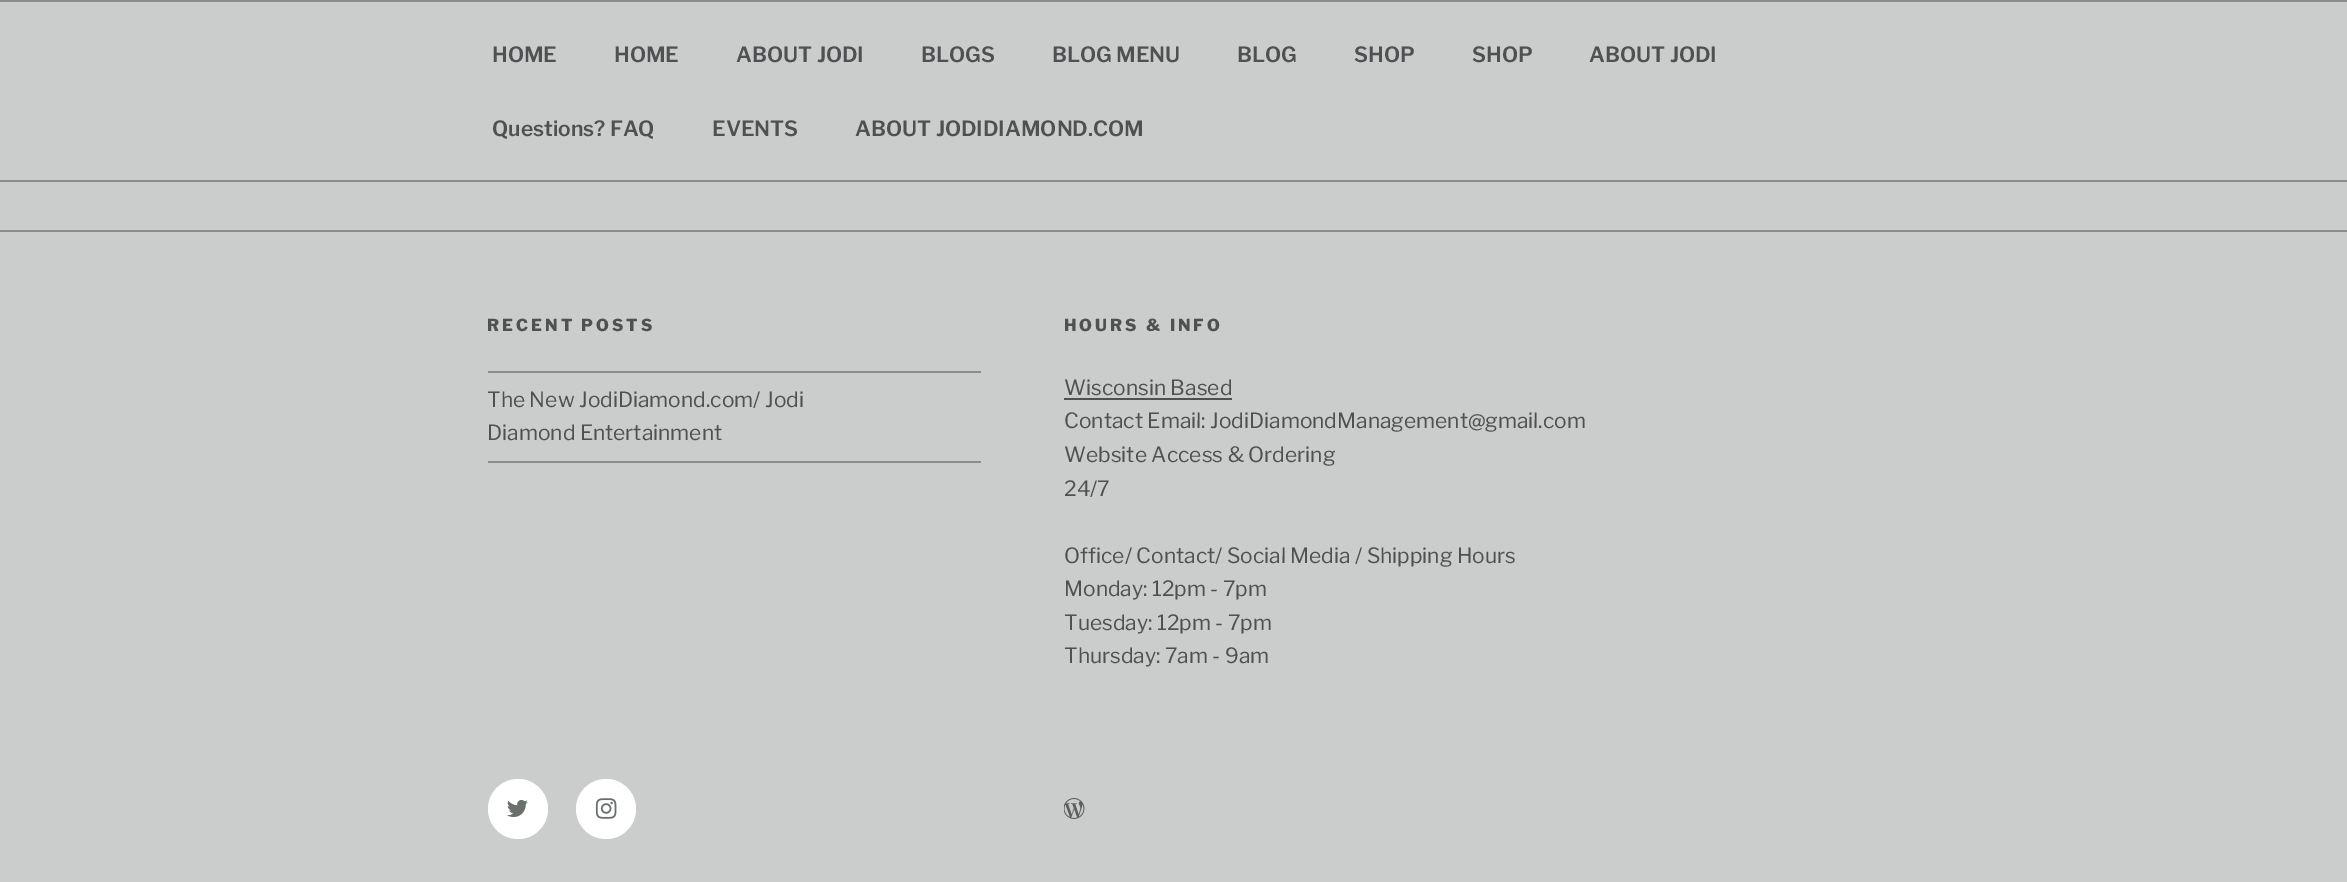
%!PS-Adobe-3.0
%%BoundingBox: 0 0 2347 882
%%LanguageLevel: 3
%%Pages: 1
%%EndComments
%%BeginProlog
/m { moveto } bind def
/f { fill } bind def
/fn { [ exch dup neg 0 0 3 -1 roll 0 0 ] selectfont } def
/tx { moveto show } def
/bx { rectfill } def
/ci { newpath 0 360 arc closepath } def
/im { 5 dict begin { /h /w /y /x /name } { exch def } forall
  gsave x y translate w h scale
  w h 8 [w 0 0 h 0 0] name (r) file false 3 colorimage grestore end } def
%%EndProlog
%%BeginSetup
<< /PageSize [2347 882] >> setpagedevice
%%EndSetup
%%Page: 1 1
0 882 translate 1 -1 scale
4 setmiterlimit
0.792 0.804 0.8 setrgbcolor
0 0 2347 882 bx
0.533 0.561 0.537 setrgbcolor
0 0 2347 2 bx
0 180 2347 2 bx
/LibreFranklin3-Thin 21 fn
0.314 0.314 0.322 setrgbcolor
(HOME) 492 62 tx
(HOME) 614 62 tx
(ABOUT JODI) 736 62 tx
(BLOGS) 921 62 tx
(BLOG MENU) 1052 62 tx
(BLOG) 1237 62 tx
(SHOP) 1354 62 tx
(SHOP) 1472 62 tx
(ABOUT JODI) 1589 62 tx
(Questions? FAQ) 492 136 tx
(EVENTS) 712 136 tx
(ABOUT JODIDIAMOND.COM) 855 136 tx
0.533 0.561 0.537 setrgbcolor
0 230 2347 2 bx
/LibreFranklin-Thin 16.5 fn
0.314 0.314 0.322 setrgbcolor
487 331 m 3 0 (RECENT POSTS) ashow
0.533 0.561 0.537 setrgbcolor
488 371 493 2 bx
488 461 493 2 bx
/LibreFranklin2-Thin 21 fn
0.314 0.314 0.322 setrgbcolor
(The New JodiDiamond.com/ Jodi) 487 407 tx
(Diamond Entertainment) 487 440 tx
/LibreFranklin-Thin 16.5 fn
1064 331 m 3 0 (HOURS & INFO) ashow
/LibreFranklin2-Thin 21 fn
(Wisconsin Based) 1064 395 tx
1064 398 168 2 bx
(Contact Email: JodiDiamondManagement@gmail.com) 1064 428 tx
(Website Access & Ordering) 1064 462 tx
(24/7) 1064 496 tx
(Office/ Contact/ Social Media / Shipping Hours) 1064 563 tx
(Monday: 12pm - 7pm) 1064 596 tx
(Tuesday: 12pm - 7pm) 1064 630 tx
(Thursday: 7am - 9am) 1064 663 tx
1 setgray
518 809 30 ci f
(image0.raw) 507 799 21 19 im
606 809 30 ci f
(image1.raw) 595 798 22 21 im
(image2.raw) 1064 798 21 21 im
showpage
%%EOF
